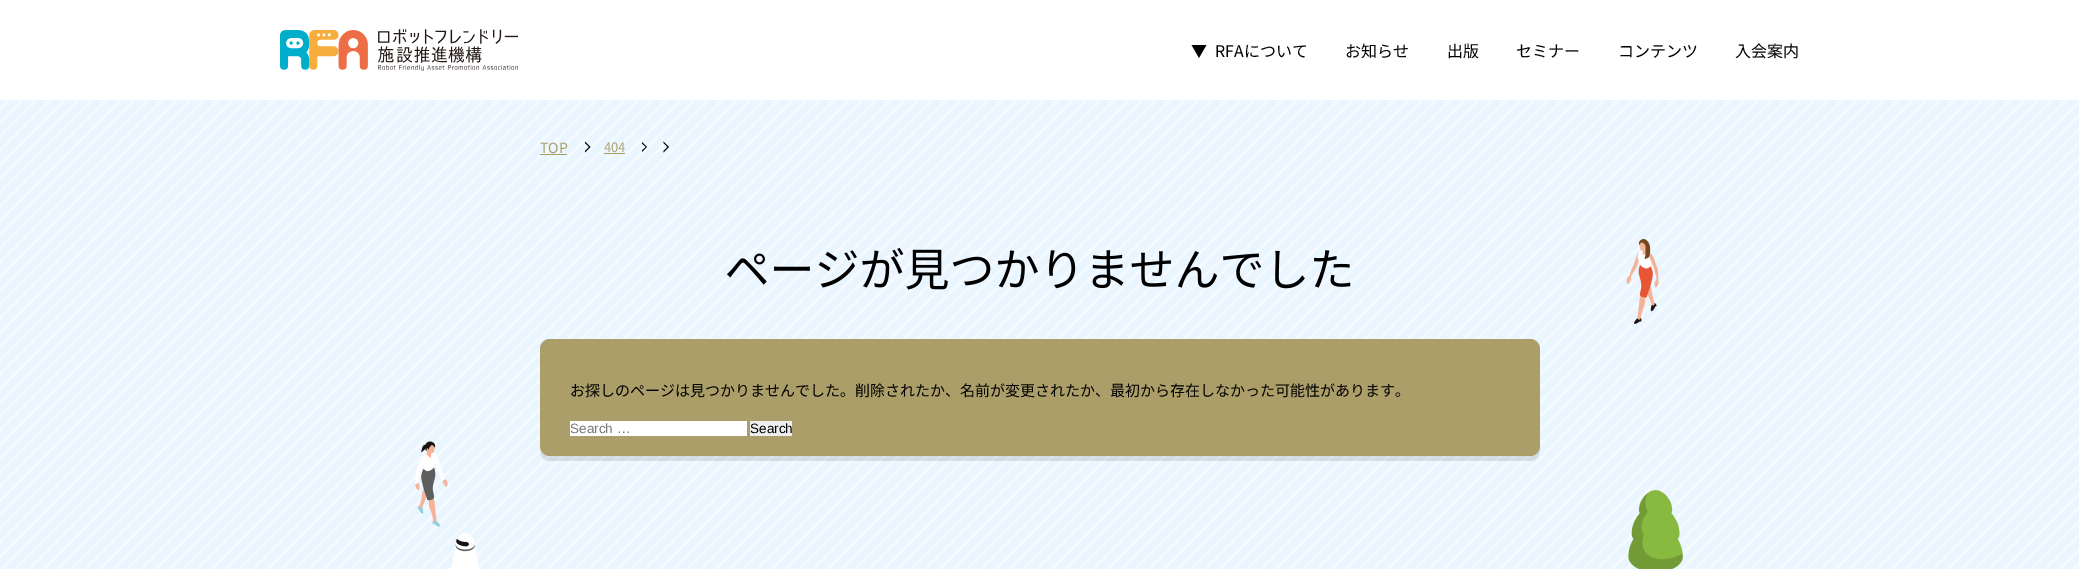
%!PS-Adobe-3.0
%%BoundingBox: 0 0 2079 569
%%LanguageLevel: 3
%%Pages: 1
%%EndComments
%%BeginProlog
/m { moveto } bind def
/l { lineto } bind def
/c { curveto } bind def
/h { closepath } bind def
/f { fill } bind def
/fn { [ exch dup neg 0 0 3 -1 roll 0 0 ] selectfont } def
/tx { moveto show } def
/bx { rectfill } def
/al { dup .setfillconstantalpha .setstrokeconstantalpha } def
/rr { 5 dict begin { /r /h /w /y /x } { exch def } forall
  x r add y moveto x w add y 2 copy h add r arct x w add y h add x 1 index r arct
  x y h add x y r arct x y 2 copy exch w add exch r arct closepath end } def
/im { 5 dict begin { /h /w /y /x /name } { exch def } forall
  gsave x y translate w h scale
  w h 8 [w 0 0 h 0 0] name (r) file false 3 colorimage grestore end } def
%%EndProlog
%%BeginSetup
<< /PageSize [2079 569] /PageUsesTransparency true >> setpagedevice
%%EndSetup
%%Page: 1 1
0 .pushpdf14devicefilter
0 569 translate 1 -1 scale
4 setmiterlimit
1 setgray
0 0 2079 569 bx
(image0.raw) 0 100 2079 469 im
(image1.raw) 280 29 238 42 im
/NotoSansJP-Regular 16 fn
0 setgray
(▼) 1191 57 tx
(RFAについて) 1215 57 tx
(お知らせ) 1345 57 tx
(出版) 1447 57 tx
(セミナー) 1516 57 tx
(コンテンツ) 1618 57 tx
(入会案内) 1735 57 tx
/NotoSansJP-Regular 14 fn
0.671 0.62 0.412 setrgbcolor
(TOP) 540 153 tx
540 154 27 1 bx
/NotoSansJP-Regular 13 fn
(404) 604 152 tx
0 setgray
585 141.5 m 590.5 147 l 589 147 l 585 143 l h 590.5 147 m 585 152.5 l 585 151 l 589 147 l h 642 142 m 647 147 l 646 147 l 642 143.5 l h f
0.671 0.62 0.412 setrgbcolor
604 153 21 1 bx
0 setgray
647 147 m 642 152 l 642 150.5 l 646 147 l h 663.5 141.5 m 669 147 l 667.5 147 l 663.5 143 l h f
669 147 m 663.5 152.5 l 663.5 151 l 667.5 147 l h f
/NotoSansJP-Regular 45 fn
(ページが見つかりませんでした) 724 286 tx
(image2.raw) 415 239 1268 330 im
0.1 al
540 446 m 540 453 541 461 550 461 c 1530 461 l 1539 461 1540 453 1540 446 c 1540 452 1536 456 1530 456 c 550 456 l 544 456 540 452 540 446 c h f
1 al
0.671 0.62 0.412 setrgbcolor
540 339 1000 117 10 rr f
/NotoSansJP-Regular 15 fn
0 setgray
(お探しのページは見つかりませんでした。削除されたか、名前が変更されたか、最初から存在しなかった可能性があります。) 570 396 tx
1 setgray
570 421 177 15 bx
/LiberationSans-Regular 13.5 fn
0.459 setgray
(Search …) 570 433 tx
0.937 setgray
750 421 42 15 bx
0 setgray
(Search) 750 433 tx
.poppdf14devicefilter showpage
%%EOF
